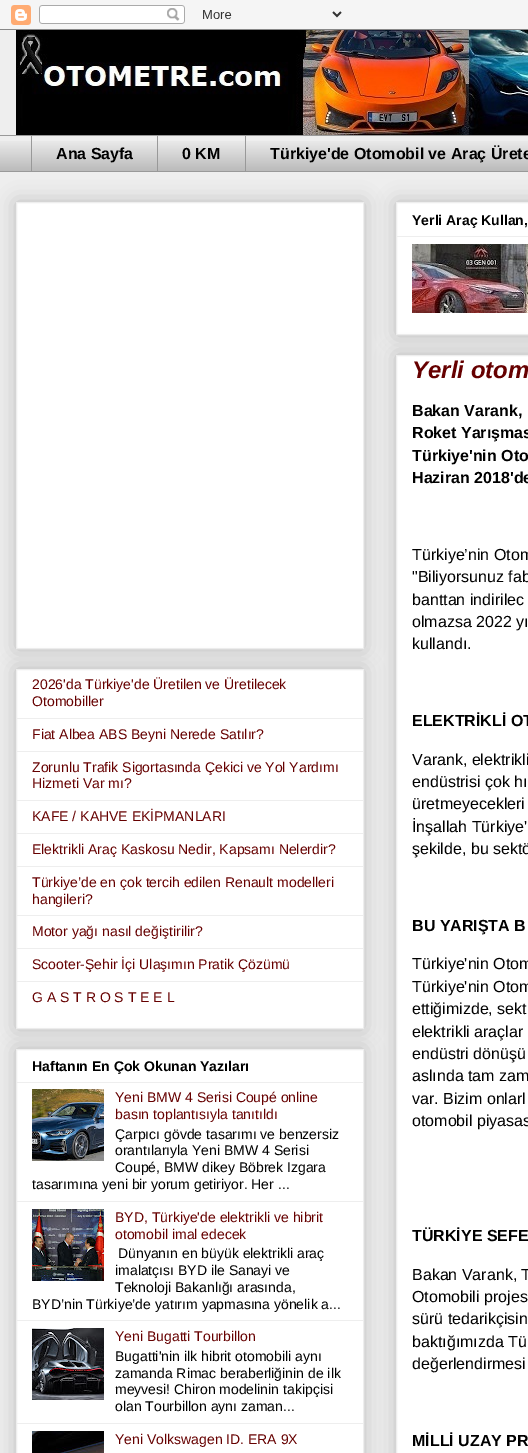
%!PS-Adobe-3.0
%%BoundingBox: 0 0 528 1453
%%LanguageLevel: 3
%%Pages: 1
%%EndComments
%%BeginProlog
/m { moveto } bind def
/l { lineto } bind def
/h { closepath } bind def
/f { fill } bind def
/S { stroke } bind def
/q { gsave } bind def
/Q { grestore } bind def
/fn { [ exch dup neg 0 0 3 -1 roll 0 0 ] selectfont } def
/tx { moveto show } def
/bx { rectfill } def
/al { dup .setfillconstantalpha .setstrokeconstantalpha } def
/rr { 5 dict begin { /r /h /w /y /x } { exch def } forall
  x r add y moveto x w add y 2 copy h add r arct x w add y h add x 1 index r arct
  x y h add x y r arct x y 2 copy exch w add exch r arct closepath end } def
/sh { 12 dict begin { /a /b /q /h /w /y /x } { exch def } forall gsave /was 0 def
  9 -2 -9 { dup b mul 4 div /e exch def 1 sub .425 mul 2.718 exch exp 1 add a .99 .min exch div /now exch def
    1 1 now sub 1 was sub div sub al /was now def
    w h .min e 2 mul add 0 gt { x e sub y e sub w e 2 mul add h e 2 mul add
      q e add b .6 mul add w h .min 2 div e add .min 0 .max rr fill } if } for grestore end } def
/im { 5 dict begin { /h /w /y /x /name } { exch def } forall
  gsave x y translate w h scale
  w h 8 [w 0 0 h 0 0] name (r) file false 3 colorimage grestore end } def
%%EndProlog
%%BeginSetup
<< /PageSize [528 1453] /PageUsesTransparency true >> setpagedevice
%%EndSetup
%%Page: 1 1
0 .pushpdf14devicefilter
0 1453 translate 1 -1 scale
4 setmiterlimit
0.933 setgray
0 0 528 1453 bx
(image0.raw) 0 0 528 30 im
(image1.raw) 16 30 512 105 im
(image2.raw) 0 141 528 30 im
0.6 setgray
0 135 528 1 bx
31 135 1 37 bx
/LiberationSans-Bold 16 fn
0 setgray
(Ana Sayfa) 56 159 tx
0.6 setgray
157 135 1 37 bx
0 setgray
(0 KM) 182 159 tx
0.6 setgray
245 135 1 37 bx
0 setgray
(Türkiye'de Otomobil ve Araç Ürete) 270 159 tx
0.6 setgray
0 171 528 1 bx
0 setgray
16 202 348 447 0 10 0.2 sh
1 setgray
16.5 202.5 m 363.5 202.5 l 363.5 648.5 l 16.5 648.5 l h q f Q
0.933 setgray
S
0 setgray
16 669 348 360 0 10 0.2 sh
1 setgray
16.5 669.5 m 363.5 669.5 l 363.5 1028.5 l 16.5 1028.5 l h q f Q
0.933 setgray
S
/LiberationSans-Regular 14 fn
0.4 0 0 setrgbcolor
(2026'da Türkiye'de Üretilen ve Üretilecek) 32 689 tx
(Otomobiller) 32 706 tx
0.933 setgray
17 718 346 1 bx
0.4 0 0 setrgbcolor
(Fiat Albea ABS Beyni Nerede Satılır?) 32 739 tx
0.933 setgray
17 751 346 1 bx
0.4 0 0 setrgbcolor
(Zorunlu Trafik Sigortasında Çekici ve Yol Yardımı) 32 772 tx
(Hizmeti Var mı?) 32 788 tx
0.933 setgray
17 800 346 1 bx
0.4 0 0 setrgbcolor
(KAFE / KAHVE EKİPMANLARI) 32 821 tx
0.933 setgray
17 833 346 1 bx
0.4 0 0 setrgbcolor
(Elektrikli Araç Kaskosu Nedir, Kapsamı Nelerdir?) 32 854 tx
0.933 setgray
17 866 346 1 bx
0.4 0 0 setrgbcolor
(Türkiye’de en çok tercih edilen Renault modelleri) 32 887 tx
(hangileri?) 32 904 tx
0.933 setgray
17 915 346 1 bx
0.4 0 0 setrgbcolor
(Motor yağı nasıl değiştirilir?) 32 936 tx
0.933 setgray
17 948 346 1 bx
0.4 0 0 setrgbcolor
(Scooter-Şehir İçi Ulaşımın Pratik Çözümü) 32 969 tx
0.933 setgray
17 981 346 1 bx
0.4 0 0 setrgbcolor
(G A S T R O S T E E L) 32 1002 tx
0 setgray
16 1049 348 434 0 10 0.2 sh
1 setgray
16.5 1049.5 m 363.5 1049.5 l 363.5 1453.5 l 16.5 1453.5 l h q f Q
0.933 setgray
S
/LiberationSans-Bold 14 fn
0 setgray
(Haftanın En Çok Okunan Yazıları) 32 1071 tx
0.933 setgray
17 1082 346 1 bx
(image3.raw) 32 1089 72 72 im
/LiberationSans-Regular 14 fn
0.4 0 0 setrgbcolor
(Yeni BMW 4 Serisi Coupé online) 115 1102 tx
(basın toplantısıyla tanıtıldı) 115 1119 tx
0 setgray
(Çarpıcı gövde tasarımı ve benzersiz) 115 1139 tx
(orantılarıyla Yeni BMW 4 Serisi) 115 1155 tx
(Coupé, BMW dikey Böbrek Izgara) 115 1172 tx
(tasarımına yeni bir yorum getiriyor. Her ...) 32 1189 tx
0.933 setgray
17 1201 346 1 bx
(image4.raw) 32 1209 72 72 im
0.4 0 0 setrgbcolor
(BYD, Türkiye'de elektrikli ve hibrit) 115 1222 tx
(otomobil imal edecek) 115 1239 tx
0 setgray
(Dünyanın en büyük elektrikli araç) 118 1258 tx
(imalatçısı BYD ile Sanayi ve) 115 1275 tx
(Teknoloji Bakanlığı arasında,) 115 1292 tx
(BYD’nin Türkiye’de yatırım yapmasına yönelik a...) 32 1309 tx
0.933 setgray
17 1320 346 1 bx
(image5.raw) 32 1328 72 72 im
0.4 0 0 setrgbcolor
(Yeni Bugatti Tourbillon) 115 1341 tx
0 setgray
(Bugatti'nin ilk hibrit otomobili aynı) 115 1361 tx
(zamanda Rimac beraberliğinin de ilk) 115 1378 tx
(meyvesi! Chiron modelinin takipçisi) 115 1394 tx
(olan Tourbillon aynı zaman...) 115 1411 tx
0.933 setgray
17 1423 346 1 bx
(image6.raw) 32 1431 72 22 im
0.4 0 0 setrgbcolor
(Yeni Volkswagen ID. ERA 9X) 115 1444 tx
0 setgray
396 202 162 133 0 10 0.2 sh
1 setgray
396.5 202.5 m 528.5 202.5 l 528.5 334.5 l 396.5 334.5 l h q f Q
0.933 setgray
S
/LiberationSans-Bold 14 fn
0 setgray
(Yerli Araç Kullan,) 412 225 tx
0.933 setgray
397 236 131 1 bx
(image7.raw) 412 244 116 69 im
0 setgray
396 355 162 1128 0 10 0.2 sh
1 setgray
396.5 355.5 m 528.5 355.5 l 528.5 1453.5 l 396.5 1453.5 l h q f Q
0.933 setgray
S
/LiberationSans-BoldItalic 24 fn
0.4 0 0 setrgbcolor
(Yerli otom) 412 378 tx
/LiberationSans-Bold 16 fn
0 setgray
(Bakan Varank,) 412 416 tx
(Roket Yarışmas) 412 438 tx
(Türkiye'nin Oto) 412 461 tx
(Haziran 2018'de) 412 483 tx
/LiberationSans-Regular 16 fn
(Türkiye’nin Otom) 412 560 tx
("Biliyorsunuz fab) 412 582 tx
(banttan indirilec) 412 605 tx
(olmazsa 2022 yı) 412 627 tx
(kullandı.) 412 649 tx
/LiberationSans-Bold 16 fn
(ELEKTRİKLİ OT) 412 726 tx
/LiberationSans-Regular 16 fn
(Varank, elektrikli) 412 765 tx
(endüstrisi çok hı) 412 787 tx
(üretmeyecekleri) 412 809 tx
(İnşallah Türkiye') 412 832 tx
(şekilde, bu sektö) 412 854 tx
/LiberationSans-Bold 16 fn
(BU YARIŞTA B) 412 931 tx
/LiberationSans-Regular 16 fn
(Türkiye'nin Otom) 412 969 tx
(Türkiye'nin Otom) 412 992 tx
(ettiğimizde, sekt) 412 1014 tx
(elektrikli araçlar) 412 1037 tx
(endüstri dönüşü) 412 1059 tx
(aslında tam zam) 412 1081 tx
(var. Bizim onlarl) 412 1104 tx
(otomobil piyasas) 412 1126 tx
/LiberationSans-Bold 16 fn
(TÜRKİYE SEFE) 412 1241 tx
/LiberationSans-Regular 16 fn
(Bakan Varank, T) 412 1280 tx
(Otomobili projes) 412 1302 tx
(sürü tedarikçisin) 412 1324 tx
(baktığımızda Tü) 412 1347 tx
(değerlendirmesi) 412 1369 tx
/LiberationSans-Bold 16 fn
(MİLLİ UZAY PR) 412 1446 tx
.poppdf14devicefilter showpage
%%EOF
